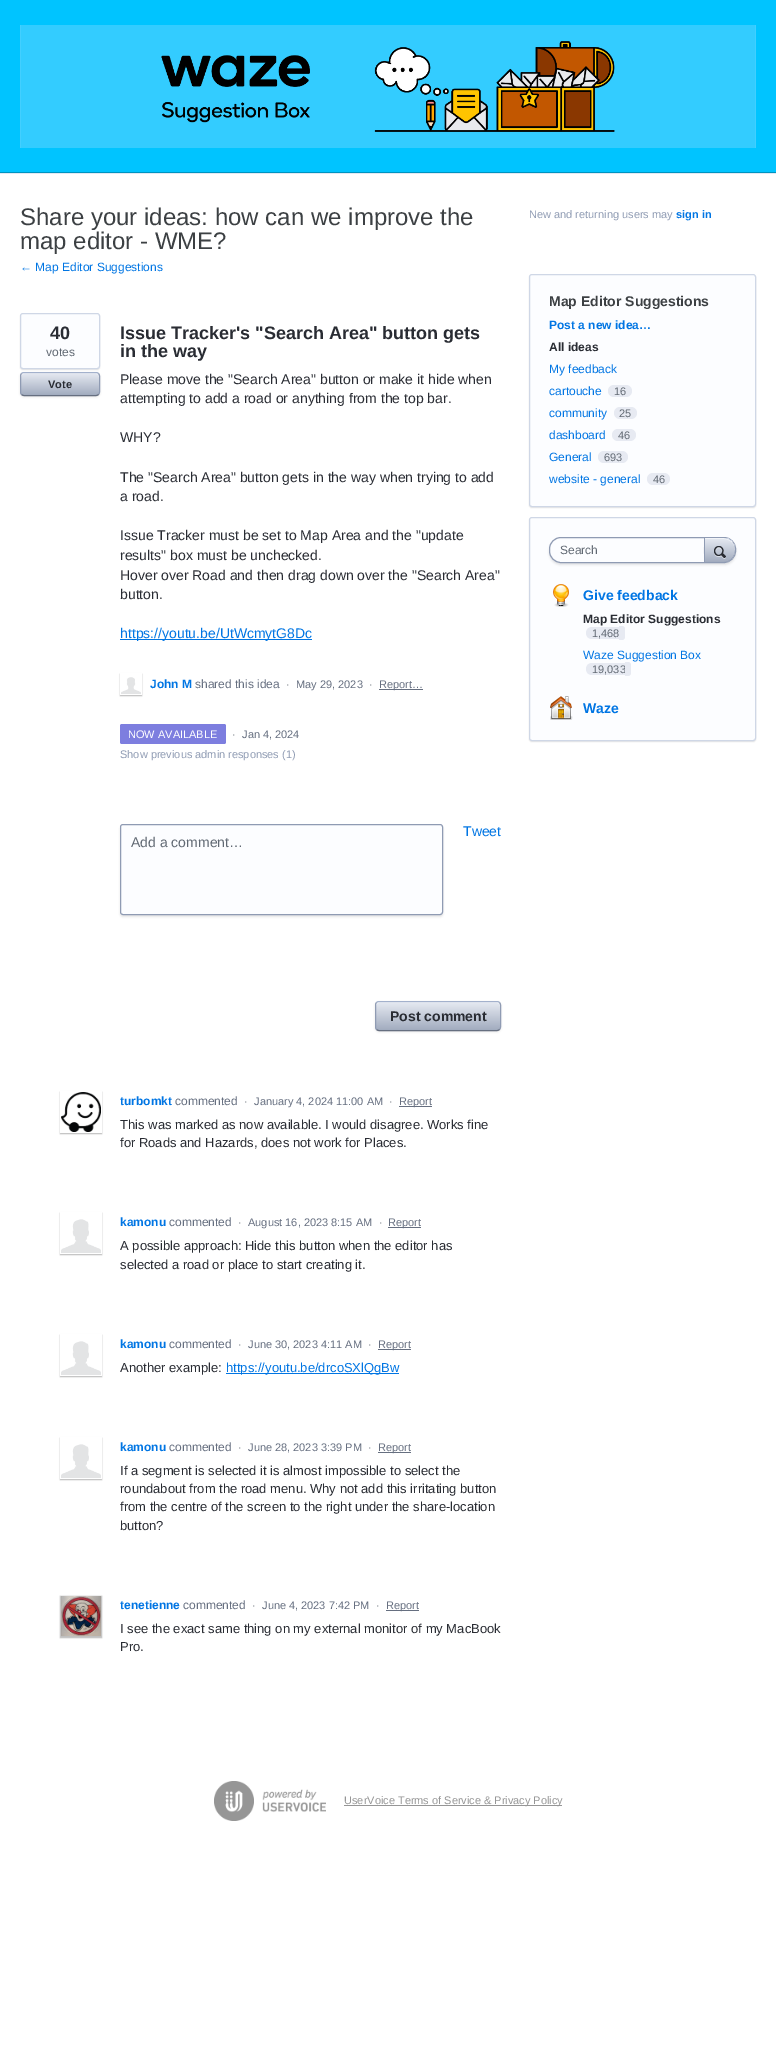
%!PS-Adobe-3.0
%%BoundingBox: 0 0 776 2055
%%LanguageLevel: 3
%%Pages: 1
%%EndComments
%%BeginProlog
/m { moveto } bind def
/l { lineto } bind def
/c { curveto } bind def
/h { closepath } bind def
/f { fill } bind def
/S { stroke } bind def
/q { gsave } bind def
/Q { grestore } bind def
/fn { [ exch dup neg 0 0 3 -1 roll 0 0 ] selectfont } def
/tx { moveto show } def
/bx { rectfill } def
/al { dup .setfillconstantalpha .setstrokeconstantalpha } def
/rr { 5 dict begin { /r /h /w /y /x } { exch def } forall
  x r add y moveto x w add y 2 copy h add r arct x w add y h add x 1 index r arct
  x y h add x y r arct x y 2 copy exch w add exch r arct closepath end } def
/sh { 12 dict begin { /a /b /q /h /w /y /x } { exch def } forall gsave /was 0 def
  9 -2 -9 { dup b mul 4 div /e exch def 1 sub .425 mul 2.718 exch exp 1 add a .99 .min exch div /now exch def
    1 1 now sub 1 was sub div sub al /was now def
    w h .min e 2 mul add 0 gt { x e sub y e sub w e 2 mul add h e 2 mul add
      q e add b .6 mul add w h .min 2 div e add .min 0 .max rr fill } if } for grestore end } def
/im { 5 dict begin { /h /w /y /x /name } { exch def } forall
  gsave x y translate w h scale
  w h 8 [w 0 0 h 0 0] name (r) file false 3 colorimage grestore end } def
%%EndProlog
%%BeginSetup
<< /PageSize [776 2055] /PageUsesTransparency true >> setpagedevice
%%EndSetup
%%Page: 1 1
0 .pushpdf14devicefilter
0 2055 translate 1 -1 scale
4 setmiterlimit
1 setgray
0 0 776 2055 bx
0 0.769 1 setrgbcolor
0 0 776 172 bx
0 0.576 0.749 setrgbcolor
0 172 776 1 bx
(image0.raw) 20 25 736 123 im
0.89 0.91 0.949 setrgbcolor
0 173 776 1 bx
/LiberationSans-Regular 24 fn
0.235 0.251 0.263 setrgbcolor
(Share your ideas: how can we improve the) 20 225 tx
(map editor - WME?) 20 249 tx
/LiberationSans-Regular 12 fn
0 0.459 0.89 setrgbcolor
(← Map Editor Suggestions) 20 271 tx
0 setgray
20 314 80 56 3 0.5 0.1 sh
0.988 0.992 1 setrgbcolor
20.5 313.5 79 55 2.5 rr q f Q
0.812 0.843 0.902 setrgbcolor
S
/LiberationSans-Bold 18 fn
0.161 0.173 0.2 setrgbcolor
(40) 50 339 tx
/LiberationSans-Regular 12 fn
0.38 0.412 0.451 setrgbcolor
(votes) 46 356 tx
0 setgray
20 373 80 24 4 1 0.1 sh
q 21 373 78 22 3 rr clip newpath
<< /ShadingType 2 /ColorSpace /DeviceRGB /Coords [21 373 21 395] /Extend [true true] /Function << /FunctionType 2 /Domain [0 1] /C0 [0.902 0.918 0.949] /C1 [0.635 0.675 0.749] /N 1 >> >> shfill Q
0.5 al
1 setgray
24 374 m 96 374 l 98 374 99 375 99 377 c 99 370 88 373 84 373 c 36 373 l 32 373 21 370 21 377 c 21 375 22 374 24 374 c h f
1 al
0.639 0.694 0.8 setrgbcolor
21.5 373.5 m 22 373 23 372.5 24 372.5 c 96 372.5 l 97 372.5 98 373 98.5 373.5 c S
0.561 0.608 0.702 setrgbcolor
98.5 373.5 m 99 374 99.5 375 99.5 376 c 99.5 392 l 99.5 393 99 394 98.5 394.5 c S
0.4 0.435 0.502 setrgbcolor
98.5 394.5 m 98 395 97 395.5 96 395.5 c 24 395.5 l 23 395.5 22 395 21.5 394.5 c S
0.561 0.608 0.702 setrgbcolor
21.5 394.5 m 21 394 20.5 393 20.5 392 c 20.5 376 l 20.5 375 21 374 21.5 373.5 c S
/LiberationSans-Bold 11 fn
0.161 0.173 0.2 setrgbcolor
(Vote) 48 388 tx
/LiberationSans-Bold 18 fn
(Issue Tracker's "Search Area" button gets) 120 339 tx
(in the way) 120 357 tx
/LiberationSans-Regular 14 fn
(Please move the "Search Area" button or make it hide when) 120 384 tx
(attempting to add a road or anything from the top bar.) 120 403 tx
(WHY?) 120 442 tx
(The "Search Area" button gets in the way when trying to add) 120 482 tx
(a road.) 120 501 tx
(Issue Tracker must be set to Map Area and the "update) 120 540 tx
(results" box must be unchecked.) 120 560 tx
(Hover over Road and then drag down over the "Search Area") 120 580 tx
(button.) 120 599 tx
0 0.459 0.89 setrgbcolor
120 639 192 1 bx
(https://youtu.be/UtWcmytG8Dc) 120 638 tx
q
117 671 m 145 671 l 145 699 l 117 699 l h 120 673 m 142 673 l 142 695 l 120 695 l h eoclip newpath
0 setgray
120 674 22 22 0 0.5 0.25 sh
Q
(image1.raw) 121 677 20 17 im
/LiberationSans-Bold 12 fn
(John M) 150 688 tx
/LiberationSans-Regular 12 fn
0.4 0.435 0.502 setrgbcolor
(shared this idea) 195 688 tx
/LiberationSans-Regular 11 fn
0.38 0.412 0.451 setrgbcolor
(·) 286 688 tx
0.4 0.435 0.502 setrgbcolor
(May 29, 2023) 296 688 tx
0.38 0.412 0.451 setrgbcolor
(·) 369 688 tx
0.4 0.435 0.502 setrgbcolor
379 689 44 1 bx
(Report…) 379 688 tx
0.49 0.494 0.875 setrgbcolor
120 724 106 20 2 rr f
1 setgray
(NOW AVAILABLE) 128 738 tx
0.38 0.412 0.451 setrgbcolor
(·) 232 738 tx
0.4 0.435 0.502 setrgbcolor
(Jan 4, 2024) 242 738 tx
0.561 0.608 0.702 setrgbcolor
(Show previous admin responses \(1\)) 120 758 tx
/LiberationSans-Regular 14 fn
0 0.459 0.89 setrgbcolor
(Tweet) 463 836 tx
0 setgray
120 826 323 91 3 1 0.1 sh
0.988 0.992 1 setrgbcolor
120.5 824.5 322 90 2.5 rr q f Q
0.561 0.608 0.702 setrgbcolor
S
0.38 0.412 0.451 setrgbcolor
(Add a comment…) 131 847 tx
0 setgray
375 1002 126 30 4 1 0.1 sh
q 376 1002 124 28 3 rr clip newpath
<< /ShadingType 2 /ColorSpace /DeviceRGB /Coords [376 1002 376 1030] /Extend [true true] /Function << /FunctionType 2 /Domain [0 1] /C0 [0.902 0.918 0.949] /C1 [0.635 0.675 0.749] /N 1 >> >> shfill Q
0.5 al
1 setgray
379 1003 m 497 1003 l 499 1003 500 1004 500 1006 c 500 1004 499 1002 497 1002 c 399 1002 l 398 1002 376 997 376 1006 c 376 1004 377 1003 379 1003 c h f
1 al
0.639 0.694 0.8 setrgbcolor
376.5 1002.5 m 377 1002 378 1001.5 379 1001.5 c 497 1001.5 l 498 1001.5 499 1002 499.5 1002.5 c S
0.561 0.608 0.702 setrgbcolor
499.5 1002.5 m 500 1003 500.5 1004 500.5 1005 c 500.5 1027 l 500.5 1028 500 1029 499.5 1029.5 c S
0.4 0.435 0.502 setrgbcolor
499.5 1029.5 m 499 1030 498 1030.5 497 1030.5 c 379 1030.5 l 378 1030.5 377 1030 376.5 1029.5 c S
0.561 0.608 0.702 setrgbcolor
376.5 1029.5 m 376 1029 375.5 1028 375.5 1027 c 375.5 1005 l 375.5 1004 376 1003 376.5 1002.5 c S
/LiberationSans-Bold 14 fn
0.161 0.173 0.2 setrgbcolor
(Post comment) 390 1021 tx
q
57 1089 m 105 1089 l 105 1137 l 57 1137 l h 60 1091 m 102 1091 l 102 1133 l 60 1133 l h eoclip newpath
0 setgray
60 1092 42 42 0 0.5 0.25 sh
Q
(image2.raw) 61 1092 40 40 im
/LiberationSans-Bold 12 fn
0 0.459 0.89 setrgbcolor
(turbomkt) 120 1105 tx
/LiberationSans-Regular 12 fn
0.4 0.435 0.502 setrgbcolor
(commented) 175 1105 tx
/LiberationSans-Regular 11 fn
0.38 0.412 0.451 setrgbcolor
(·) 244 1105 tx
0.4 0.435 0.502 setrgbcolor
(January 4, 2024 11:00 AM) 254 1105 tx
0.38 0.412 0.451 setrgbcolor
(·) 389 1105 tx
0.4 0.435 0.502 setrgbcolor
399 1106 33 1 bx
(Report) 399 1105 tx
/LiberationSans-Regular 13 fn
0.161 0.173 0.2 setrgbcolor
(This was marked as now available. I would disagree. Works fine) 120 1129 tx
(for Roads and Hazards, does not work for Places.) 120 1147 tx
q
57 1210 m 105 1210 l 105 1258 l 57 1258 l h 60 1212 m 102 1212 l 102 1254 l 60 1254 l h eoclip newpath
0 setgray
60 1213 42 42 0 0.5 0.25 sh
Q
(image3.raw) 61 1219 40 34 im
/LiberationSans-Bold 12 fn
0 0.459 0.89 setrgbcolor
(kamonu) 120 1226 tx
/LiberationSans-Regular 12 fn
0.4 0.435 0.502 setrgbcolor
(commented) 169 1226 tx
/LiberationSans-Regular 11 fn
0.38 0.412 0.451 setrgbcolor
(·) 238 1226 tx
0.4 0.435 0.502 setrgbcolor
(August 16, 2023 8:15 AM) 248 1226 tx
0.38 0.412 0.451 setrgbcolor
(·) 379 1226 tx
0.4 0.435 0.502 setrgbcolor
388 1227 33 1 bx
(Report) 388 1226 tx
/LiberationSans-Regular 13 fn
0.161 0.173 0.2 setrgbcolor
(A possible approach: Hide this button when the editor has) 120 1250 tx
(selected a road or place to start creating it.) 120 1269 tx
q
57 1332 m 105 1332 l 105 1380 l 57 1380 l h 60 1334 m 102 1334 l 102 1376 l 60 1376 l h eoclip newpath
0 setgray
60 1335 42 42 0 0.5 0.25 sh
Q
(image4.raw) 61 1341 40 34 im
/LiberationSans-Bold 12 fn
0 0.459 0.89 setrgbcolor
(kamonu) 120 1348 tx
/LiberationSans-Regular 12 fn
0.4 0.435 0.502 setrgbcolor
(commented) 169 1348 tx
/LiberationSans-Regular 11 fn
0.38 0.412 0.451 setrgbcolor
(·) 238 1348 tx
0.4 0.435 0.502 setrgbcolor
(June 30, 2023 4:11 AM) 248 1348 tx
0.38 0.412 0.451 setrgbcolor
(·) 368 1348 tx
0.4 0.435 0.502 setrgbcolor
378 1349 33 1 bx
(Report) 378 1348 tx
/LiberationSans-Regular 13 fn
0.161 0.173 0.2 setrgbcolor
(Another example:) 120 1372 tx
0 0.459 0.89 setrgbcolor
226 1373 173 1 bx
(https://youtu.be/drcoSXlQgBw) 226 1372 tx
q
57 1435 m 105 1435 l 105 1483 l 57 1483 l h 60 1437 m 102 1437 l 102 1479 l 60 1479 l h eoclip newpath
0 setgray
60 1438 42 42 0 0.5 0.25 sh
Q
(image3.raw) 61 1444 40 34 im
/LiberationSans-Bold 12 fn
(kamonu) 120 1451 tx
/LiberationSans-Regular 12 fn
0.4 0.435 0.502 setrgbcolor
(commented) 169 1451 tx
/LiberationSans-Regular 11 fn
0.38 0.412 0.451 setrgbcolor
(·) 238 1451 tx
0.4 0.435 0.502 setrgbcolor
(June 28, 2023 3:39 PM) 248 1451 tx
0.38 0.412 0.451 setrgbcolor
(·) 368 1451 tx
0.4 0.435 0.502 setrgbcolor
378 1452 33 1 bx
(Report) 378 1451 tx
/LiberationSans-Regular 13 fn
0.161 0.173 0.2 setrgbcolor
(If a segment is selected it is almost impossible to select the) 120 1475 tx
(roundabout from the road menu. Why not add this irritating button) 120 1493 tx
(from the centre of the screen to the right under the share-location) 120 1511 tx
(button?) 120 1530 tx
0 setgray
60 1596 42 42 0 0.5 0.25 sh
(image5.raw) 61 1596 40 40 im
/LiberationSans-Bold 12 fn
0 0.459 0.89 setrgbcolor
(tenetienne) 120 1609 tx
/LiberationSans-Regular 12 fn
0.4 0.435 0.502 setrgbcolor
(commented) 183 1609 tx
/LiberationSans-Regular 11 fn
0.38 0.412 0.451 setrgbcolor
(·) 252 1609 tx
0.4 0.435 0.502 setrgbcolor
(June 4, 2023 7:42 PM) 262 1609 tx
0.38 0.412 0.451 setrgbcolor
(·) 376 1609 tx
0.4 0.435 0.502 setrgbcolor
386 1610 33 1 bx
(Report) 386 1609 tx
/LiberationSans-Regular 13 fn
0.161 0.173 0.2 setrgbcolor
(I see the exact same thing on my external monitor of my MacBook) 120 1633 tx
(Pro.) 120 1651 tx
/LiberationSans-Regular 11 fn
0.561 0.608 0.702 setrgbcolor
(New and returning users may) 529 218 tx
/LiberationSans-Bold 11 fn
0 0.459 0.89 setrgbcolor
(sign in) 676 218 tx
0 setgray
529 275 227 233 3 0.5 0.1 sh
0.988 0.992 1 setrgbcolor
529.5 274.5 226 232 2.5 rr q f Q
0.812 0.843 0.902 setrgbcolor
S
/LiberationSans-Bold 14 fn
0.235 0.251 0.263 setrgbcolor
(Map Editor Suggestions) 549 306 tx
/LiberationSans-Bold 12 fn
0 0.459 0.89 setrgbcolor
(Post a new idea…) 549 329 tx
0.161 0.173 0.2 setrgbcolor
(All ideas) 549 351 tx
/LiberationSans-Regular 12 fn
0 0.459 0.89 setrgbcolor
(My feedback) 549 373 tx
(cartouche) 549 395 tx
0.906 0.918 0.949 setrgbcolor
608 385 24 12 6 rr f
/LiberationSans-Regular 11 fn
0.38 0.412 0.451 setrgbcolor
(16) 614 395 tx
/LiberationSans-Regular 12 fn
0 0.459 0.89 setrgbcolor
(community) 549 417 tx
0.906 0.918 0.949 setrgbcolor
614 407 23 12 6 rr f
/LiberationSans-Regular 11 fn
0.38 0.412 0.451 setrgbcolor
(25) 619 417 tx
/LiberationSans-Regular 12 fn
0 0.459 0.89 setrgbcolor
(dashboard) 549 439 tx
0.906 0.918 0.949 setrgbcolor
612 429 24 12 6 rr f
/LiberationSans-Regular 11 fn
0.38 0.412 0.451 setrgbcolor
(46) 618 439 tx
/LiberationSans-Regular 12 fn
0 0.459 0.89 setrgbcolor
(General) 549 461 tx
0.906 0.918 0.949 setrgbcolor
598 451 30 12 6 rr f
/LiberationSans-Regular 11 fn
0.38 0.412 0.451 setrgbcolor
(693) 604 461 tx
/LiberationSans-Regular 12 fn
0 0.459 0.89 setrgbcolor
(website - general) 549 483 tx
0.906 0.918 0.949 setrgbcolor
647 473 23 12 6 rr f
/LiberationSans-Regular 11 fn
0.38 0.412 0.451 setrgbcolor
(46) 653 483 tx
0 setgray
529 518 227 224 3 0.5 0.1 sh
0.988 0.992 1 setrgbcolor
529.5 517.5 226 223 2.5 rr q f Q
0.812 0.843 0.902 setrgbcolor
S
0 setgray
549 539 187 26 12 1 0.1 sh
0.988 0.992 1 setrgbcolor
549.5 537.5 186 25 11.5 rr q f Q
0.561 0.608 0.702 setrgbcolor
S
/LiberationSans-Regular 12 fn
0.38 0.412 0.451 setrgbcolor
(Search) 560 554 tx
q
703 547 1 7 rectclip
0 setgray
704 538 32 25 12 1 0.1 sh
Q
q 705 538 m 724 538 l 730 538 735 543 735 549 c 735 550 l 735 556.5 730 562 724 562 c 705 562 l h clip newpath
<< /ShadingType 2 /ColorSpace /DeviceRGB /Coords [705 538 705 562] /Extend [true true] /Function << /FunctionType 2 /Domain [0 1] /C0 [0.902 0.918 0.949] /C1 [0.635 0.675 0.749] /N 1 >> >> shfill Q
0.5 al
1 setgray
705 538 m 705 539 l 724 539 l 730 539 735 544 735 550 c 735 543.5 731 538 724 538 c h f
1 al
0.639 0.694 0.8 setrgbcolor
724 538 m 727 538 730 539 732 541 c 730 539.5 727 538 724 538 c h f
0.561 0.608 0.702 setrgbcolor
735 550 m 735 556.5 731 562 724 562 c 730 562 735 556.5 735 550 c h 732 541 m 733.5 543 735 546 735 549 c 735 546 734 543 732 541 c h eofill
704 538 1 24 bx
(image6.raw) 714 546 12 13 im
(image7.raw) 553 584 16 23 im
/LiberationSans-Bold 14 fn
0 0.459 0.89 setrgbcolor
(Give feedback) 583 600 tx
/LiberationSans-Bold 12 fn
0.161 0.173 0.2 setrgbcolor
(Map Editor Suggestions) 583 623 tx
0.906 0.918 0.949 setrgbcolor
592 627 m 619 627 l 619 639 l 592 639 l 588.5 639 586 636.5 586 633 c 586 629.5 588.5 627 592 627 c h f
/LiberationSans-Regular 11 fn
0.38 0.412 0.451 setrgbcolor
(1,468) 592 637 tx
0.906 0.918 0.949 setrgbcolor
619 626 m 622 626 l 623.5 626 625 627.5 625 629 c 625 637 l 625 638.5 623.5 640 622 640 c 619 640 l h f
/LiberationSans-Regular 12 fn
0 0.459 0.89 setrgbcolor
(Waze Suggestion Box) 583 659 tx
0.906 0.918 0.949 setrgbcolor
592 663 m 625 663 l 625 675 l 592 675 l 588.5 675 586 672.5 586 669 c 586 665.5 588.5 663 592 663 c h f
/LiberationSans-Regular 11 fn
0.38 0.412 0.451 setrgbcolor
(19,033) 592 673 tx
0.906 0.918 0.949 setrgbcolor
625 662 m 628 662 l 629.5 662 631 663.5 631 665 c 631 673 l 631 674.5 629.5 676 628 676 c 625 676 l h f
(image8.raw) 550 696 23 24 im
/LiberationSans-Bold 14 fn
0 0.459 0.89 setrgbcolor
(Waze) 583 713 tx
(image9.raw) 214 1781 112 40 im
0.588 setgray
344 1805 218 1 bx
/LiberationSans-Regular 11 fn
(UserVoice Terms of Service & Privacy Policy) 344 1804 tx
.poppdf14devicefilter showpage
%%EOF
